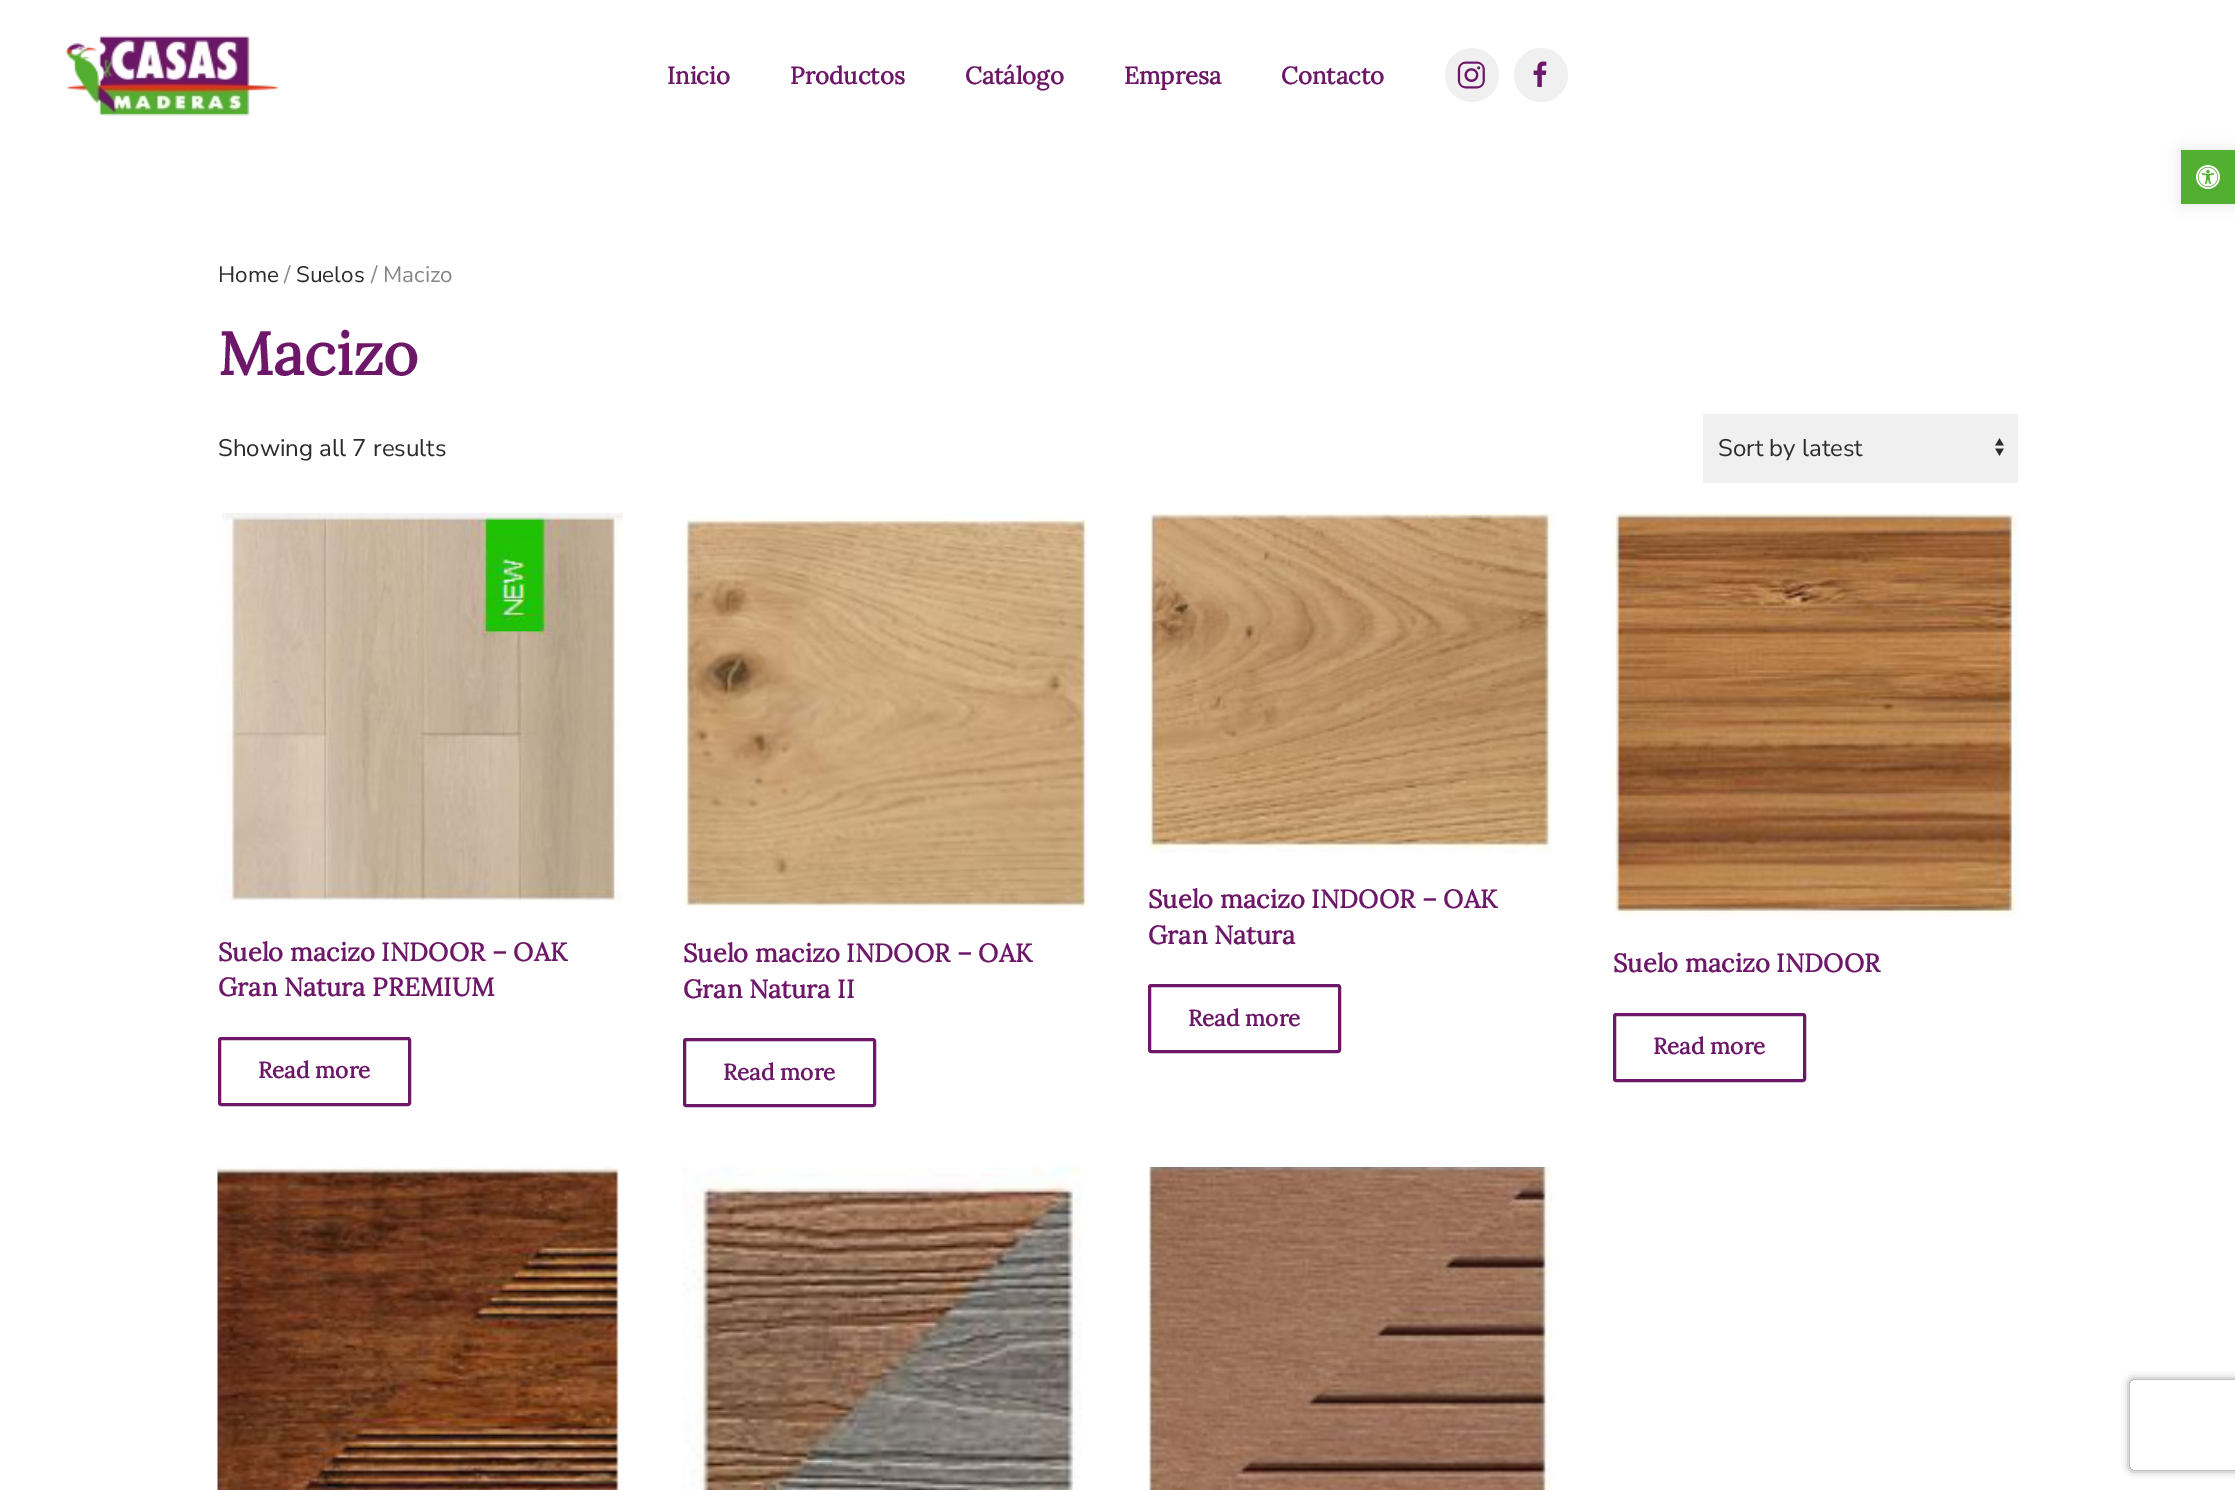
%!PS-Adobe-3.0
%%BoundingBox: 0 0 2235 1490
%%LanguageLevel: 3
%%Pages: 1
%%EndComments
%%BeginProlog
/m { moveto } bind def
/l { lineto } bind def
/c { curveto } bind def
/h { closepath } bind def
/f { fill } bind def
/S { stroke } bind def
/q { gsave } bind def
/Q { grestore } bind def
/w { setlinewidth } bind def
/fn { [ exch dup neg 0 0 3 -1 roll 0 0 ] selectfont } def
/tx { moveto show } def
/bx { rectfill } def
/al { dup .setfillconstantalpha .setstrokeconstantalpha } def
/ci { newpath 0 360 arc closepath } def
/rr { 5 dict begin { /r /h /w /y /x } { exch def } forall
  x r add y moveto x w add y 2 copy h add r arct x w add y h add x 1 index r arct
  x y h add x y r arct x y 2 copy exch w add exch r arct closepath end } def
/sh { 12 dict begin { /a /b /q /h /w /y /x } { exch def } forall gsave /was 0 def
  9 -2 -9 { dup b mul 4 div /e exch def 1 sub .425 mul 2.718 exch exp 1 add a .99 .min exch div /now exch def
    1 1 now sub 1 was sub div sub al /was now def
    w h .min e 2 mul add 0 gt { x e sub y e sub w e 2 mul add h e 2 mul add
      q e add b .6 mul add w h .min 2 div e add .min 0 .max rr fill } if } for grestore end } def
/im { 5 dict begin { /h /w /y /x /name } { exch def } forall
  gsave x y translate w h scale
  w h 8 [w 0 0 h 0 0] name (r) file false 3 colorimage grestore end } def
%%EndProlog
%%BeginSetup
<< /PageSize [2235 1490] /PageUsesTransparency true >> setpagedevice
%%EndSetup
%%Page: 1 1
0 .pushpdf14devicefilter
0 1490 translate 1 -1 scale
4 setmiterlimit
1 setgray
0 0 2235 1490 bx
(image0.raw) 65 35 214 81 im
/Lora-Bold 24 fn
0.424 0.09 0.404 setrgbcolor
(Inicio) 667 84 tx
(Productos) 790 84 tx
(Catálogo) 965 84 tx
(Empresa) 1124 84 tx
(Contacto) 1281 84 tx
0.941 setgray
1472 75 27 ci f
(image1.raw) 1457 61 28 28 im
1541 75 27 ci f
(image2.raw) 1533 61 14 26 im
/NunitoSans-Regular 22.5 fn
0.173 setgray
(Home) 218 282 tx
0.525 setgray
(/) 284 282 tx
0.173 setgray
(Suelos) 296 282 tx
0.525 setgray
(/ Macizo) 371 282 tx
/Lora-Bold 60 fn
0.424 0.09 0.404 setrgbcolor
(Macizo) 218 375 tx
/NunitoSans-Regular 24 fn
0.173 setgray
(Showing all 7 results) 218 456 tx
0.941 setgray
1703 414 315 69 bx
(image3.raw) 1995 438 9 18 im
0.173 setgray
(Sort by latest) 1718 456 tx
(image4.raw) 222 513 401 389 im
/Lora-Bold 25.5 fn
0.424 0.09 0.404 setrgbcolor
(Suelo macizo INDOOR – OAK) 218 961 tx
(Gran Natura PREMIUM) 218 996 tx
3 w
219.5 1038.5 190 66 1.5 rr S
/Lora-Bold 22.5 fn
(Read more) 258 1078 tx
(image5.raw) 682 513 406 393 im
/Lora-Bold 25.5 fn
(Suelo macizo INDOOR – OAK) 683 962 tx
(Gran Natura II) 683 998 tx
684.5 1039.5 190 66 1.5 rr S
/Lora-Bold 22.5 fn
(Read more) 723 1080 tx
(image6.raw) 1147 513 406 341 im
/Lora-Bold 25.5 fn
(Suelo macizo INDOOR – OAK) 1148 908 tx
(Gran Natura) 1148 944 tx
1149.5 985.5 190 66 1.5 rr S
/Lora-Bold 22.5 fn
(Read more) 1188 1026 tx
(image7.raw) 1612 513 406 404 im
/Lora-Bold 25.5 fn
(Suelo macizo INDOOR) 1613 972 tx
1614.5 1014.5 190 66 1.5 rr S
/Lora-Bold 22.5 fn
(Read more) 1653 1054 tx
(image8.raw) 217 1167 402 323 im
(image9.raw) 682 1167 401 323 im
(image10.raw) 1147 1167 406 323 im
0 setgray
2181 150 54 54 0 7.5 0.1 sh
0.325 0.686 0.192 setrgbcolor
2181 150 54 54 bx
(image11.raw) 2196 165 24 24 im
q
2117 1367 m 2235 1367 l 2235 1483 l 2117 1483 l h 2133 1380 m 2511 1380 l 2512.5 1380 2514 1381.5 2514 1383 c 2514 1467 l 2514 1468.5 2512.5 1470 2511 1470 c 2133 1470 l 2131.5 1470 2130 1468.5 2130 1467 c 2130 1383 l 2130 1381.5 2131.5 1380 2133 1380 c h eoclip newpath
0.502 setgray
2130 1380 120 90 3 4 1 sh
Q
.poppdf14devicefilter showpage
%%EOF
